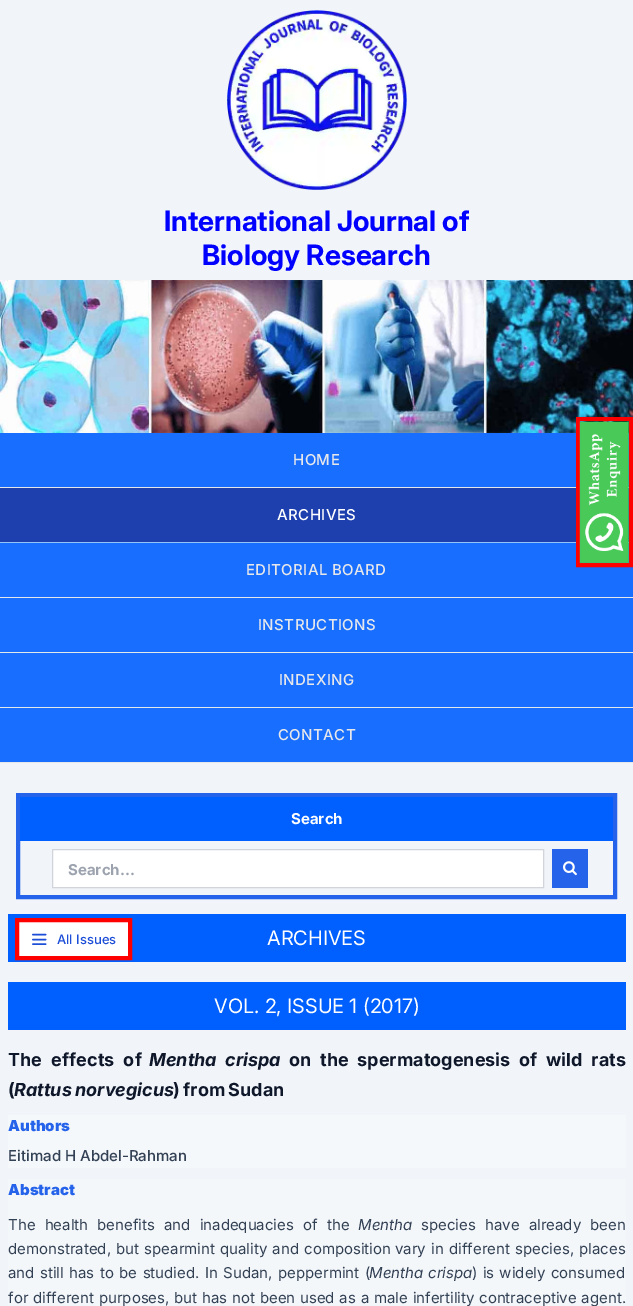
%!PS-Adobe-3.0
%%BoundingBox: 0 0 633 1306
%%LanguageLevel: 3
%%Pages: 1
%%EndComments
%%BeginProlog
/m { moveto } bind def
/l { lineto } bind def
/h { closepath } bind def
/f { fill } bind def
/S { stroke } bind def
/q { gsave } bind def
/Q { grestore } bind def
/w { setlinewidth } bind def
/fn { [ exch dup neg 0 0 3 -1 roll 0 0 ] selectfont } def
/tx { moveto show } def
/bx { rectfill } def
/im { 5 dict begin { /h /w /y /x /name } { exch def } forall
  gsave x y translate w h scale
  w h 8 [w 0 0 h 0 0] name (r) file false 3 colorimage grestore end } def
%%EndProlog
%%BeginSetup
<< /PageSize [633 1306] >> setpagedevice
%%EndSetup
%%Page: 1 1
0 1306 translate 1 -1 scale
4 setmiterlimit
0.945 0.961 0.976 setrgbcolor
0 0 633 1306 bx
(image0.raw) 227 10 180 180 im
/Inter-Bold 28.1 fn
0 0 1 setrgbcolor
(International Journal of) 164 231 tx
(Biology Research) 202 265 tx
(image1.raw) 0 280 633 153 im
0.094 0.431 0.996 setrgbcolor
0 433 633 329 bx
0.898 0.906 0.922 setrgbcolor
0 487 633 1 bx
/Inter-Medium 15 fn
293 465 m 0.4 0 (HOME) ashow
0.118 0.251 0.686 setrgbcolor
0 488 629 54 bx
0.576 0.773 0.992 setrgbcolor
0 542 633 1 bx
1 setgray
277 520 m 0.4 0 (ARCHIVES) ashow
0.898 0.906 0.922 setrgbcolor
0 597 633 1 bx
246 575 m 0.4 0 (EDITORIAL BOARD) ashow
0 652 633 1 bx
258 630 m 0.4 0 (INSTRUCTIONS) ashow
0 707 633 1 bx
279 685 m 0.4 0 (INDEXING) ashow
0 762 633 1 bx
278 740 m 0.4 0 (CONTACT) ashow
0.145 0.388 0.922 setrgbcolor
4 w
18 795 597 102 rectstroke
0 0.373 1 setrgbcolor
20 797 593 44 bx
/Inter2-Bold 15 fn
1 setgray
(Search) 291 824 tx
52.5 849.5 m 543.5 849.5 l 543.5 887.5 l 52.5 887.5 l h q f Q
0.82 0.835 0.859 setrgbcolor
1 w
S
0.612 0.639 0.686 setrgbcolor
(Search...) 68 875 tx
0.145 0.388 0.922 setrgbcolor
552 849 36 39 bx
(image2.raw) 563 861 14 15 im
0 0.373 1 setrgbcolor
8 914 618 48 bx
1 setgray
17 920 m 130 920 l 130 958 l 17 958 l h q f Q
1 0 0 setrgbcolor
4 w
S
0.114 0.306 0.847 setrgbcolor
1.6 w
1 setlinecap
1 setlinejoin
33 934.5 m 45.5 934.5 l 33 939.5 m 45.5 939.5 l 33 944 m 45.5 944 l S
/Inter-Medium 13 fn
(All Issues) 57 944 tx
/Inter-Regular 20 fn
1 setgray
(ARCHIVES) 267 945 tx
0 0.373 1 setrgbcolor
8 982 618 48 bx
1 setgray
(VOL. 2, ISSUE 1 \(2017\)) 214 1013 tx
/Inter2-Bold 18 fn
0.059 0.09 0.165 setrgbcolor
8 1066 m 5 0 32 (The effects of) widthshow
/Inter-BoldItalic 18 fn
149 1066 m 4 0 32 (Mentha crispa) widthshow
/Inter2-Bold 18 fn
289 1066 m 4.5 0 32 (on the spermatogenesis of wild rats) widthshow
(\() 8 1096 tx
/Inter-BoldItalic 18 fn
14 1096 m -1 0 32 (Rattus norvegicus) widthshow
/Inter2-Bold 18 fn
173 1096 m -1 0 32 (\) from Sudan) widthshow
0.961 0.973 0.984 setrgbcolor
8 1115 618 53 bx
/Inter-Black 15 fn
0.145 0.388 0.922 setrgbcolor
(Authors) 8 1131 tx
/Inter-Medium 15 fn
0.2 0.255 0.333 setrgbcolor
(Eitimad H Abdel-Rahman) 8 1161 tx
0.957 0.969 0.98 setrgbcolor
8 1179 618 127 bx
/Inter-Black 15 fn
0.145 0.388 0.922 setrgbcolor
(Abstract) 8 1195 tx
/Inter2-Regular 15 fn
0.2 0.255 0.333 setrgbcolor
8 1230 m 5 0 32 (The health benefits and inadequacies of the) widthshow
/Inter-Italic 15 fn
(Mentha) 358 1230 tx
/Inter2-Regular 15 fn
421 1230 m 5 0 32 (species have already been) widthshow
8 1254 m 1 0 32 (demonstrated, but spearmint quality and composition) widthshow
395 1254 m 1 0 32 (vary in different species, places) widthshow
8 1278 m 1.25 0 32 (and still has to be studied. In Sudan, peppermint \() widthshow
/Inter-Italic 15 fn
369 1278 m 1 0 32 (Mentha crispa) widthshow
/Inter2-Regular 15 fn
472 1278 m 1 0 32 (\) is widely consumed) widthshow
8 1303 m 0.6 0 32 (for different purposes, but has not been used as a male infertility contraceptive agent.) widthshow
1 0 0 setrgbcolor
4 w
0 setlinecap
0 setlinejoin
578 565 m 578 419 l 631 419 l 631 565 l h S
(image3.raw) 579 421 51 143 im
showpage
%%EOF
